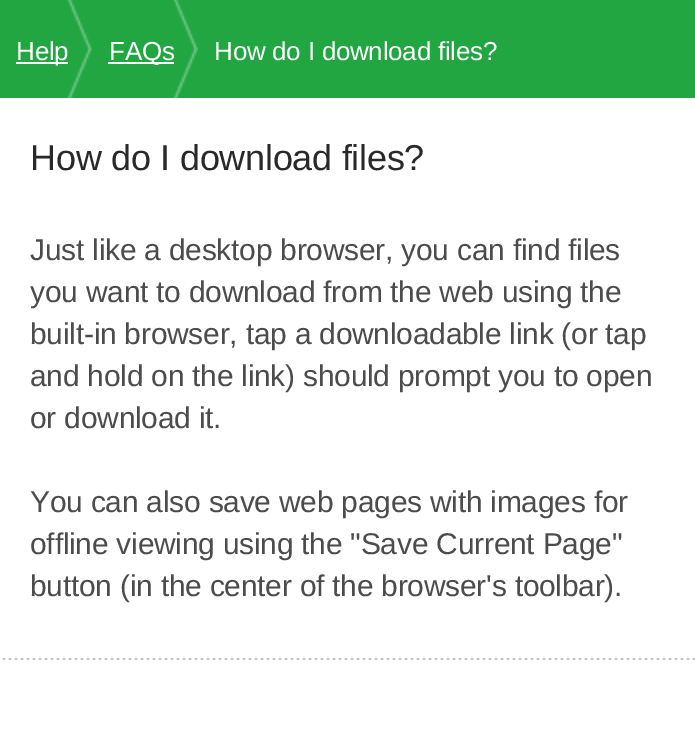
%!PS-Adobe-3.0
%%BoundingBox: 0 0 695 733
%%LanguageLevel: 3
%%Pages: 1
%%EndComments
%%BeginProlog
/m { moveto } bind def
/fn { [ exch dup neg 0 0 3 -1 roll 0 0 ] selectfont } def
/bx { rectfill } def
/im { 5 dict begin { /h /w /y /x /name } { exch def } forall
  gsave x y translate w h scale
  w h 8 [w 0 0 h 0 0] name (r) file false 3 colorimage grestore end } def
%%EndProlog
%%BeginSetup
<< /PageSize [695 733] >> setpagedevice
%%EndSetup
%%Page: 1 1
0 733 translate 1 -1 scale
4 setmiterlimit
1 setgray
0 0 695 733 bx
0.129 0.651 0.259 setrgbcolor
0 0 695 98 bx
(image0.raw) 67 0 25 98 im
1 setgray
16 62 52 2 bx
/LiberationSans-Regular 26 fn
16 60 m -0.25 0 (Help) ashow
(image0.raw) 173 0 25 98 im
108 62 66 2 bx
109 60 m -0.25 0 (FAQs) ashow
214 60 m -0.25 0 (How do I download files?) ashow
/LiberationSans-Regular 36 fn
0.161 setgray
30 170 m -0.25 0 (How do I download files?) ashow
(image1.raw) 2 658 693 2 im
/LiberationSans-Regular 30 fn
0.302 0.298 0.298 setrgbcolor
30 260 m -0.25 0 (Just like a desktop browser, you can find files) ashow
30 302 m -0.25 0 (you want to download from the web using the) ashow
30 344 m -0.25 0 (built-in browser, tap a downloadable link \(or tap) ashow
30 386 m -0.25 0 (and hold on the link\) should prompt you to open) ashow
30 428 m -0.25 0 (or download it.) ashow
30 512 m -0.25 0 (You can also save web pages with images for) ashow
30 554 m -0.25 0 (offline viewing using the "Save Current Page") ashow
30 596 m -0.25 0 (button \(in the center of the browser's toolbar\).) ashow
showpage
%%EOF
